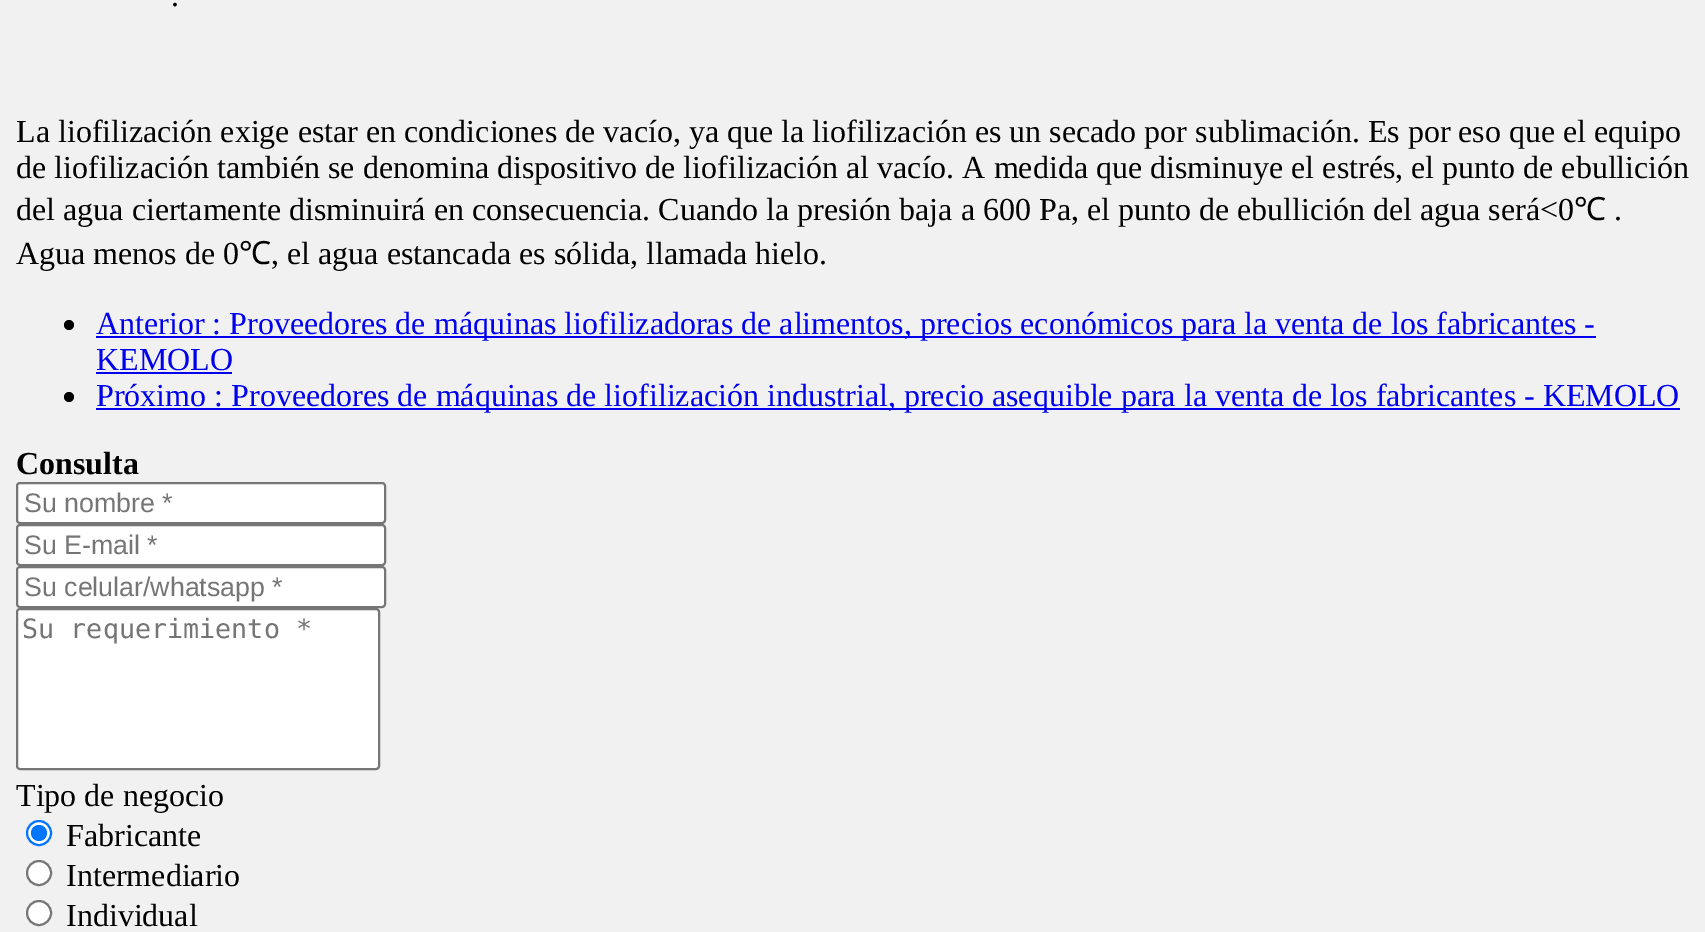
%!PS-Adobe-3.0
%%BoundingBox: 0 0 1705 932
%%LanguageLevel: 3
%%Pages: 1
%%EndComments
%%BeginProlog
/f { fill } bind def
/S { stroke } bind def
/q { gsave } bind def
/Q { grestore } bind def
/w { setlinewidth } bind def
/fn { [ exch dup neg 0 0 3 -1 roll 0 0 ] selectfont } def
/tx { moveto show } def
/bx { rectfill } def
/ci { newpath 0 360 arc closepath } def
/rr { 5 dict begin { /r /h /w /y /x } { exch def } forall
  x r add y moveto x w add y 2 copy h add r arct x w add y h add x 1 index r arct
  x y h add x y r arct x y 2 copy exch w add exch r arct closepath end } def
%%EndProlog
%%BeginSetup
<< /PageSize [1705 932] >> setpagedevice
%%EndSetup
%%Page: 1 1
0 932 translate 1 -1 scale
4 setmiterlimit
0.945 setgray
0 0 1705 932 bx
/LiberationSerif-Regular 32 fn
0 setgray
(.) 171 6 tx
(La liofilización exige estar en condiciones de vacío, ya que la liofilización es un secado por sublimación. Es por eso que el equipo) 16 142 tx
(de liofilización también se denomina dispositivo de liofilización al vacío. A medida que disminuye el estrés, el punto de ebullición) 16 178 tx
(del agua ciertamente disminuirá en consecuencia. Cuando la presión baja a 600 Pa, el punto de ebullición del agua será<0) 16 220 tx
/NotoSans-Regular 32 fn
(℃) 1574 220 tx
/LiberationSerif-Regular 32 fn
(.) 1614 220 tx
(Agua menos de 0) 16 264 tx
/NotoSans-Regular 32 fn
(℃) 239 264 tx
/LiberationSerif-Regular 32 fn
(, el agua estancada es sólida, llamada hielo.) 271 264 tx
69 325 5 ci f
0 0 0.933 setrgbcolor
96 336 1500 2 bx
(Anterior : Proveedores de máquinas liofilizadoras de alimentos, precios económicos para la venta de los fabricantes -) 96 334 tx
(KEMOLO) 96 370 tx
96 372 136 2 bx
0 setgray
69 397 5 ci f
0 0 0.933 setrgbcolor
96 408 1584 2 bx
(Próximo : Proveedores de máquinas de liofilización industrial, precio asequible para la venta de los fabricantes - KEMOLO) 96 406 tx
/LiberationSerif-Bold 32 fn
0 setgray
(Consulta) 16 474 tx
1 setgray
17 483 368 40 3 rr q f Q
0.463 setgray
2 w
S
/LiberationSans-Regular 26.75 fn
0.459 setgray
(Su nombre *) 24 512 tx
1 setgray
17 525 368 40 3 rr q f Q
0.463 setgray
S
0.459 setgray
(Su E-mail *) 24 554 tx
1 setgray
17 567 368 40 3 rr q f Q
0.463 setgray
S
0.459 setgray
(Su celular/whatsapp *) 24 596 tx
1 setgray
17 609 362 160 3 rr q f Q
0.463 setgray
S
/DejaVuSansMono-Regular 26.75 fn
0.459 setgray
(Su requerimiento *) 22 638 tx
/LiberationSerif-Regular 32 fn
0 setgray
(Tipo de negocio) 16 806 tx
1 setgray
39 833 12 ci q f Q
0 0.459 1 setrgbcolor
S
39 833 8 ci f
0 setgray
(Fabricante) 66 846 tx
1 setgray
39 873 12 ci q f Q
0.463 setgray
S
0 setgray
(Intermediario) 66 886 tx
1 setgray
39 913 12 ci q f Q
0.463 setgray
S
0 setgray
(Individual) 66 926 tx
showpage
%%EOF
